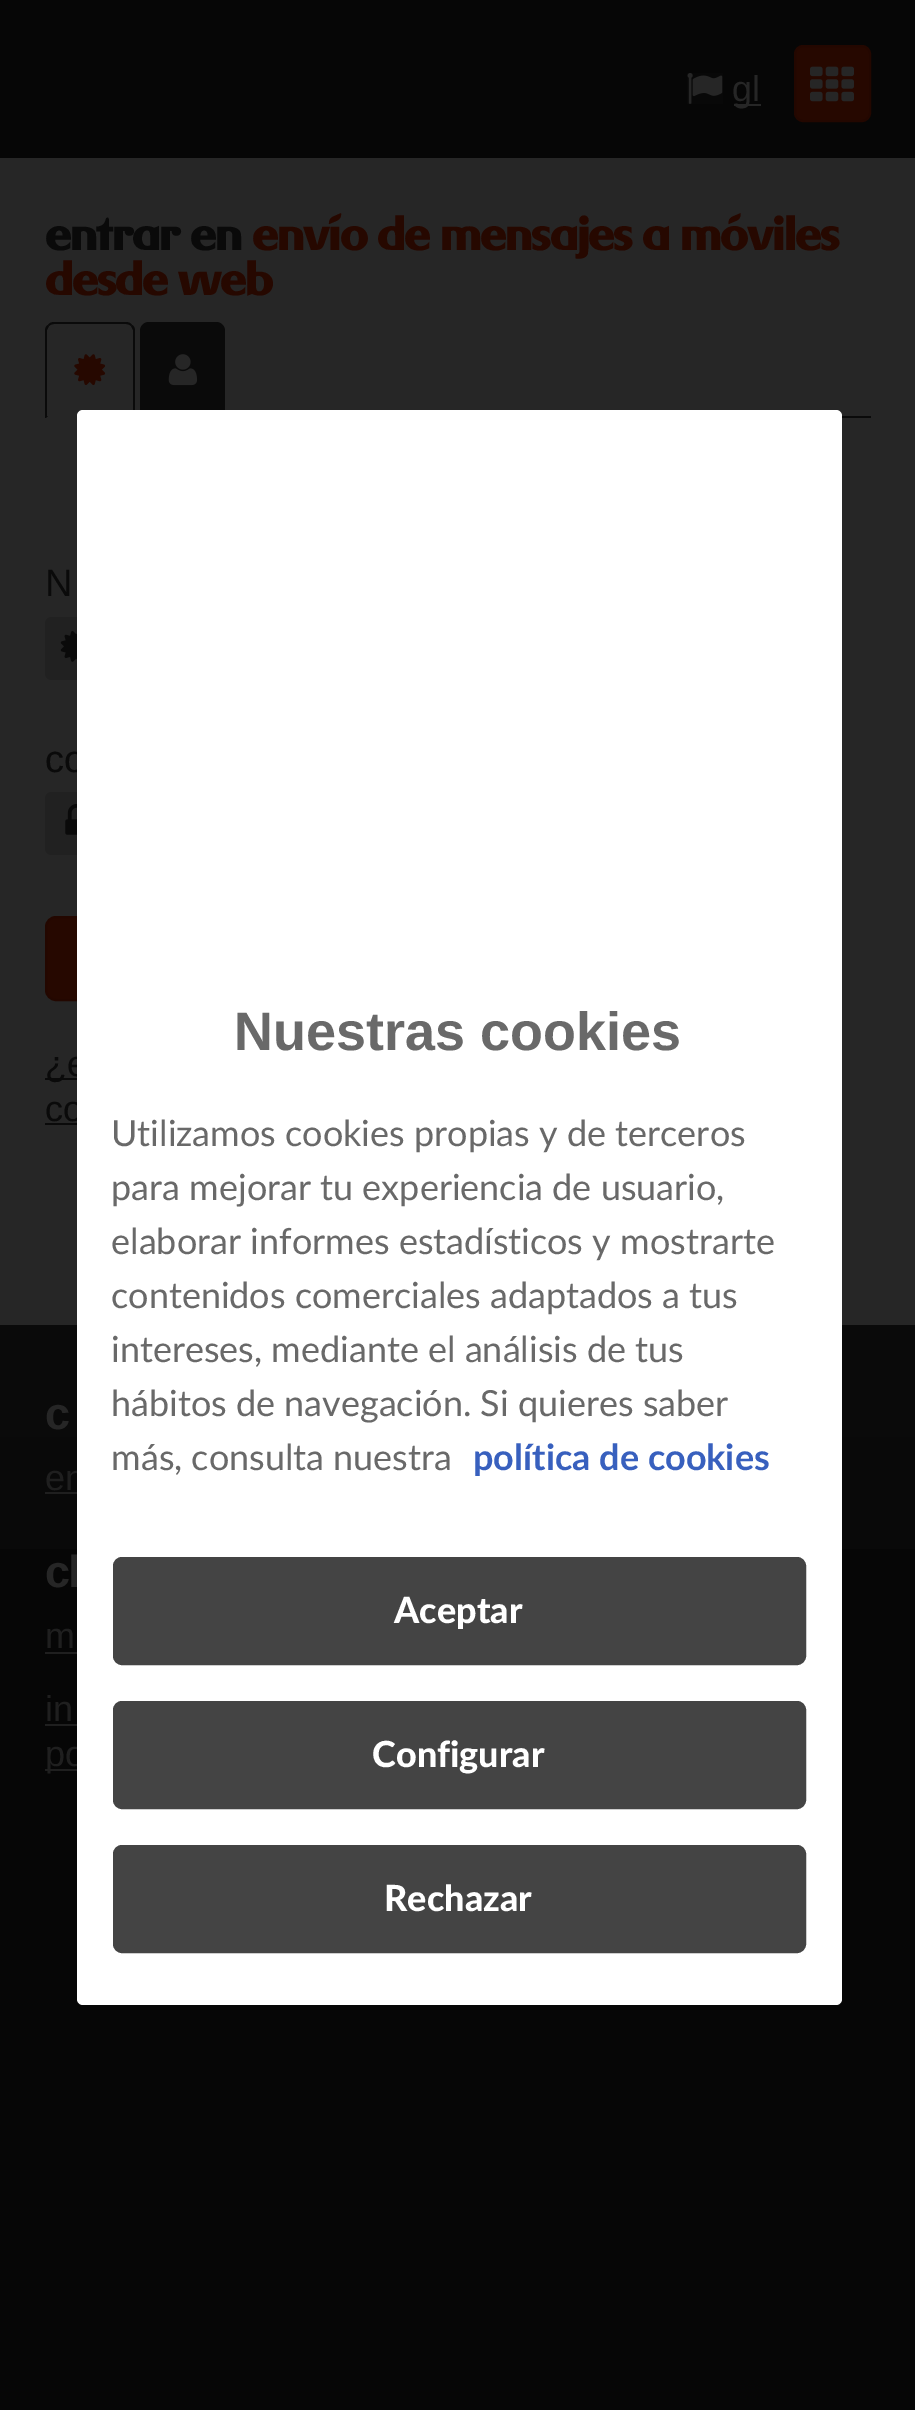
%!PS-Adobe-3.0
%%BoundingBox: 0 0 915 2410
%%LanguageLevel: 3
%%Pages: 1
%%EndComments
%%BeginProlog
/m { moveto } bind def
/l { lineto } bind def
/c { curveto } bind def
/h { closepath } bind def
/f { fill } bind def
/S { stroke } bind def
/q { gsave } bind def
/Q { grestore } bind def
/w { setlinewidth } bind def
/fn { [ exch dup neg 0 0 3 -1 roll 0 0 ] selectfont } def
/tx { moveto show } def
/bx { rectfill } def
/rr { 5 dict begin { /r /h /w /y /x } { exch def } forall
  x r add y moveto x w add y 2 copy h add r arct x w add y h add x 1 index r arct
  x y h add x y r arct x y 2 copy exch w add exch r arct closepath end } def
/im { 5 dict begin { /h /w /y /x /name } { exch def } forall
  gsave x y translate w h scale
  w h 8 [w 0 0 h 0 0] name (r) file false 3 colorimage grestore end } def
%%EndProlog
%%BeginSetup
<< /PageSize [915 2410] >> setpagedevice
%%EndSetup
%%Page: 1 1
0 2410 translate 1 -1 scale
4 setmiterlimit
0.024 setgray
0 0 915 2410 bx
0.149 setgray
0 158 915 1167 bx
(image0.raw) 687 73 36 31 im
734 104 27 2 bx
/LiberationSans-Regular 36 fn
(gl) 732 101 tx
0.149 0.031 0 setrgbcolor
795 46 75 75 8 rr q f Q
0.137 0.027 0 setrgbcolor
2 w
S
(image1.raw) 810 66 44 36 im
/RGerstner-Bold 45 fn
0.039 setgray
45 250 m -2.25 0 (entrar en) ashow
0.149 0.031 0 setrgbcolor
252 250 m -2.25 0 (envío de mensajes a móviles) ashow
45 295 m -2.25 0 (desde web) ashow
0.039 setgray
842 416 29 2 bx
54 322 m 52 322 49 323 48 325 c 49 326 l 50 325 52 324 54 324 c 126 324 l 128 324 130 325 131 326 c 132 325 l 131 323 128 322 126 322 c h f
132 325 m 134 326 135 328 135 331 c 135 418 l 134 418 l 132 416 l 133 416 l 133 330 l 131 326 l h f
0.149 setgray
134 418 m 46 418 l 48 416 l 132 416 l h f
0.039 setgray
45 331 m 45 418 l 46 418 l 48 416 l 47 416 l 47 330 l 49 326 l 48 325 l 46 326 45 328 45 331 c h f
(image2.raw) 74 354 32 32 im
149 322 m 216 322 l 221 322 225 326 225 331 c 225 419 l 140 419 l 140 331 l 140 326 144 322 149 322 c h f
(image3.raw) 168 354 30 32 im
/LiberationSans-Regular 38 fn
(N) 45 596 tx
0.129 setgray
52 617 m 108 617 l 108 680 l 52 680 l 48 680 45 677 45 673 c 45 624 l 45 620 48 617 52 617 c h f
(image4.raw) 60 631 17 31 im
0.039 setgray
(co) 45 772 tx
0.129 setgray
52 792 m 108 792 l 108 855 l 52 855 l 48 855 45 852 45 848 c 45 799 l 45 795 48 792 52 792 c h f
(image5.raw) 65 803 12 32 im
0.149 0.031 0 setrgbcolor
46 917 178 83 10 rr q f Q
0.137 0.027 0 setrgbcolor
S
0.039 setgray
45 1078 32 2 bx
/LiberationSans-Regular 36 fn
(¿e) 45 1076 tx
(co) 45 1121 tx
45 1123 32 2 bx
q 0 1325 m 915 1325 l 915 1549 l 0 1549 l h clip newpath
<< /ShadingType 2 /ColorSpace /DeviceRGB /Coords [458 1325 458 1823] /Extend [true true] /Function << /FunctionType 3 /Domain [0 1] /Functions [<< /FunctionType 2 /Domain [0 1] /C0 [0.043 0.043 0.043] /C1 [0.024 0.024 0.024] /N 1 >> << /FunctionType 2 /Domain [0 1] /C0 [0.024 0.024 0.024] /C1 [0.024 0.024 0.024] /N 1 >>] /Bounds [0.9] /Encode [0 1 0 1] >> >> shfill Q
/LiberationSans-Bold 45 fn
0.149 setgray
45 1429 m -2.25 0 (c) ashow
/LiberationSans-Regular 36 fn
0.122 setgray
(en) 45 1490 tx
45 1492 32 2 bx
/LiberationSans-Bold 45 fn
0.149 setgray
45 1587 m -2.25 0 (cl) ashow
/LiberationSans-Regular 36 fn
0.122 setgray
(m) 45 1648 tx
45 1652 32 2 bx
(in) 45 1721 tx
45 1724 32 2 bx
45 1769 32 2 bx
(po) 45 1766 tx
1 setgray
77 410 765 1595 6 rr f
/LiberationSans-Bold 54 fn
0.412 setgray
(Nuestras cookies) 234 1050 tx
/Lato-Regular 36 fn
(Utilizamos cookies propias y de terceros) 111 1146 tx
(para mejorar tu experiencia de usuario,) 111 1200 tx
(elaborar informes estadísticos y mostrarte) 111 1254 tx
(contenidos comerciales adaptados a tus) 111 1308 tx
(intereses, mediante el análisis de tus) 111 1362 tx
(hábitos de navegación. Si quieres saber) 111 1416 tx
(más, consulta nuestra) 111 1470 tx
/Lato-Bold 36 fn
0.22 0.376 0.745 setrgbcolor
(política de cookies) 473 1470 tx
0.267 setgray
114 1558 691 106 8 rr q f Q
S
/Lato-Black 36 fn
1 setgray
(Aceptar) 394 1623 tx
0.267 setgray
114 1846 691 106 8 rr q f Q
S
1 setgray
(Rechazar) 384 1911 tx
0.267 setgray
114 1702 691 106 8 rr q f Q
S
1 setgray
(Configurar) 372 1767 tx
showpage
%%EOF
